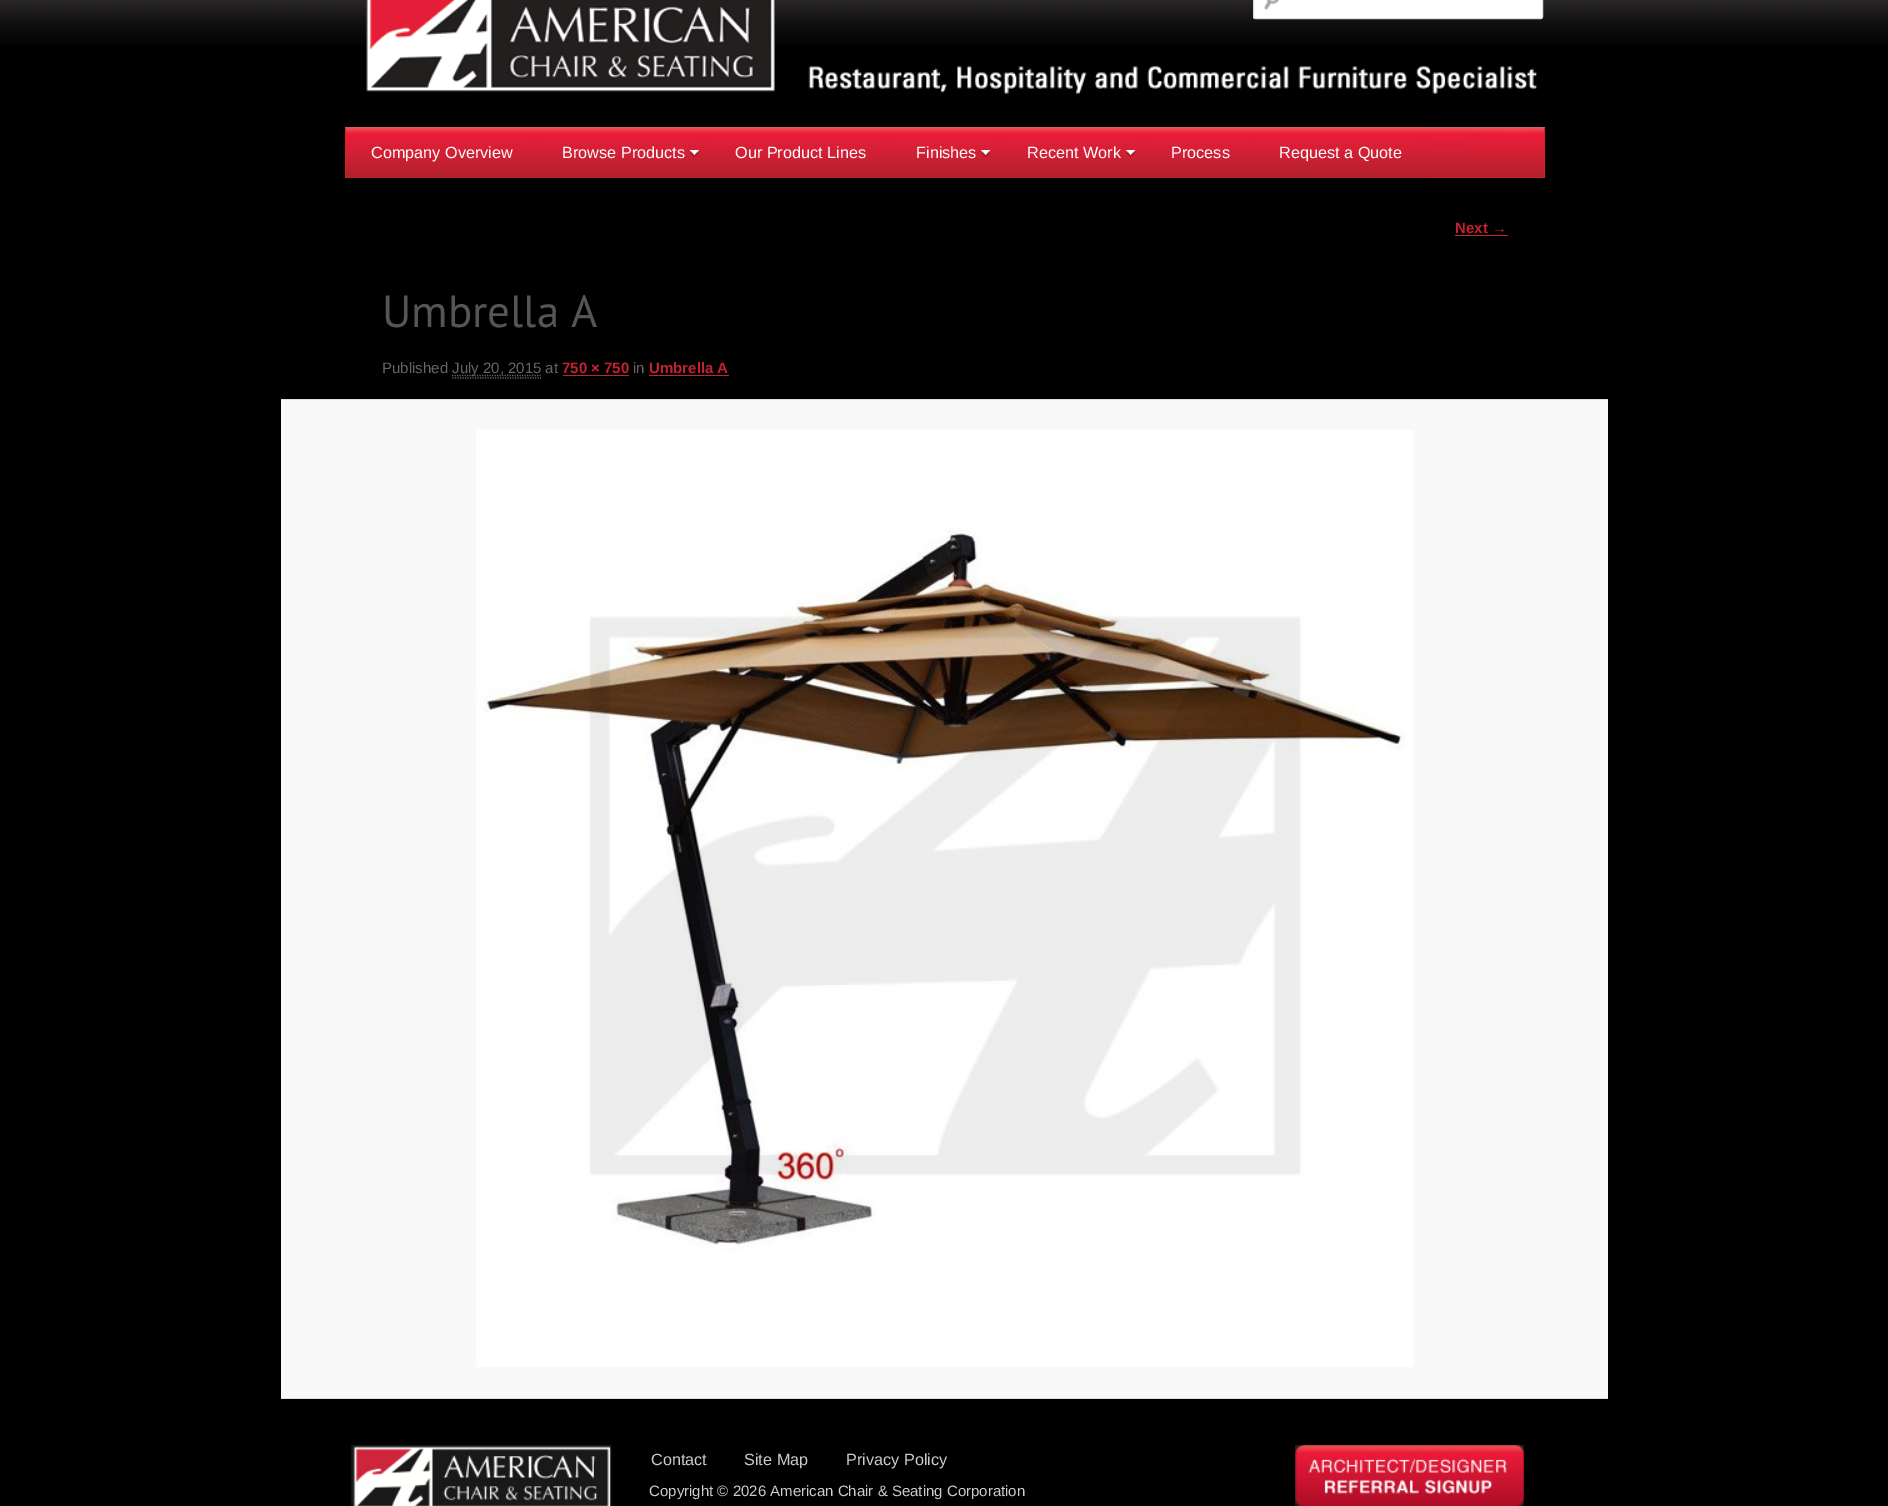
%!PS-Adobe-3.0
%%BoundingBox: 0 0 1888 1506
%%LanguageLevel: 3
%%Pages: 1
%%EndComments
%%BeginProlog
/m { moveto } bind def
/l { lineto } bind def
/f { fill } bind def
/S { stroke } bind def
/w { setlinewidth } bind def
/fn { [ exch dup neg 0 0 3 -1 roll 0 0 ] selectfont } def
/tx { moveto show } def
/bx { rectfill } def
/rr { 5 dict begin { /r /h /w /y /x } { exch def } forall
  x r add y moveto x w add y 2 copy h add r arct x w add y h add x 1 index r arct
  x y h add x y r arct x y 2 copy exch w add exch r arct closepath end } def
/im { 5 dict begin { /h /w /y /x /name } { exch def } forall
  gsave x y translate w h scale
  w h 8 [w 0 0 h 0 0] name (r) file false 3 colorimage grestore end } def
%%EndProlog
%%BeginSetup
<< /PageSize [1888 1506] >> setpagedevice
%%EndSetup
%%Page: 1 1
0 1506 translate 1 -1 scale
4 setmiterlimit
0 setgray
0 0 1888 1506 bx
(image0.raw) 0 0 1888 45 im
(image1.raw) 808 66 729 28 im
(image2.raw) 366 0 409 92 im
1 setgray
1253 -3 290 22 2.5 rr f
(image3.raw) 1263 0 16 10 im
0.867 setgray
1253.5 -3.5 289 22 2 rr S
(image4.raw) 345 127 1200 1 im
0.894 0.118 0.122 setrgbcolor
346 177 1198 1 bx
(image5.raw) 345 127 1200 51 im
1544 128 1 50 bx
345 128 1 50 bx
(image6.raw) 346 127 192 51 im
/LiberationSans-Regular 16.25 fn
1 setgray
(Company Overview) 371 158 tx
(image7.raw) 537 127 173 51 im
(Browse Products) 562 158 tx
(image8.raw) 690 150 10 8 im
(image9.raw) 710 127 182 51 im
(Our Product Lines) 735 158 tx
(image10.raw) 891 127 111 51 im
(Finishes) 916 158 tx
(image11.raw) 981 150 10 8 im
(image13.raw) 1146 127 109 51 im
(image12.raw) 1001 127 146 51 im
(Recent Work) 1027 158 tx
(image11.raw) 1126 150 10 8 im
(Process) 1171 158 tx
(image14.raw) 1255 127 173 51 im
(Request a Quote) 1279 158 tx
/LiberationSans-Bold 15 fn
0.765 0.133 0.192 setrgbcolor
(Next →) 1455 233 tx
1455 235 53 1 bx
/PTSans-Regular 45 fn
0.333 setgray
(Umbrella A) 382 327 tx
/LiberationSans-Regular 15 fn
0.4 setgray
(Published) 382 373 tx
1.2 w
[1.25 1.25] 0 setdash
452 375.5 m 541 375.5 l S
(July 20, 2015 at) 452 373 tx
452.5 378 m 541 378 l S
/LiberationSans-Bold 15 fn
0.765 0.133 0.192 setrgbcolor
(750 × 750) 562 373 tx
563 375 66 1 bx
/LiberationSans-Regular 15 fn
0.4 setgray
(in) 633 373 tx
/LiberationSans-Bold 15 fn
0.765 0.133 0.192 setrgbcolor
(Umbrella A) 649 373 tx
649 375 80 1 bx
0.976 setgray
281 400 1327 998 bx
0.867 setgray
281 399 1327 1 bx
281 1398 1327 1 bx
(image15.raw) 476 430 938 937 im
(image16.raw) 351 1445 261 61 im
/LiberationSans-Regular 16.25 fn
0.8 setgray
(Contact) 651 1465 tx
(Site Map) 744 1465 tx
(Privacy Policy) 846 1465 tx
/LiberationSans-Regular 15 fn
(Copyright © 2026 American Chair & Seating Corporation) 649 1496 tx
(image17.raw) 1295 1445 229 61 im
showpage
%%EOF
